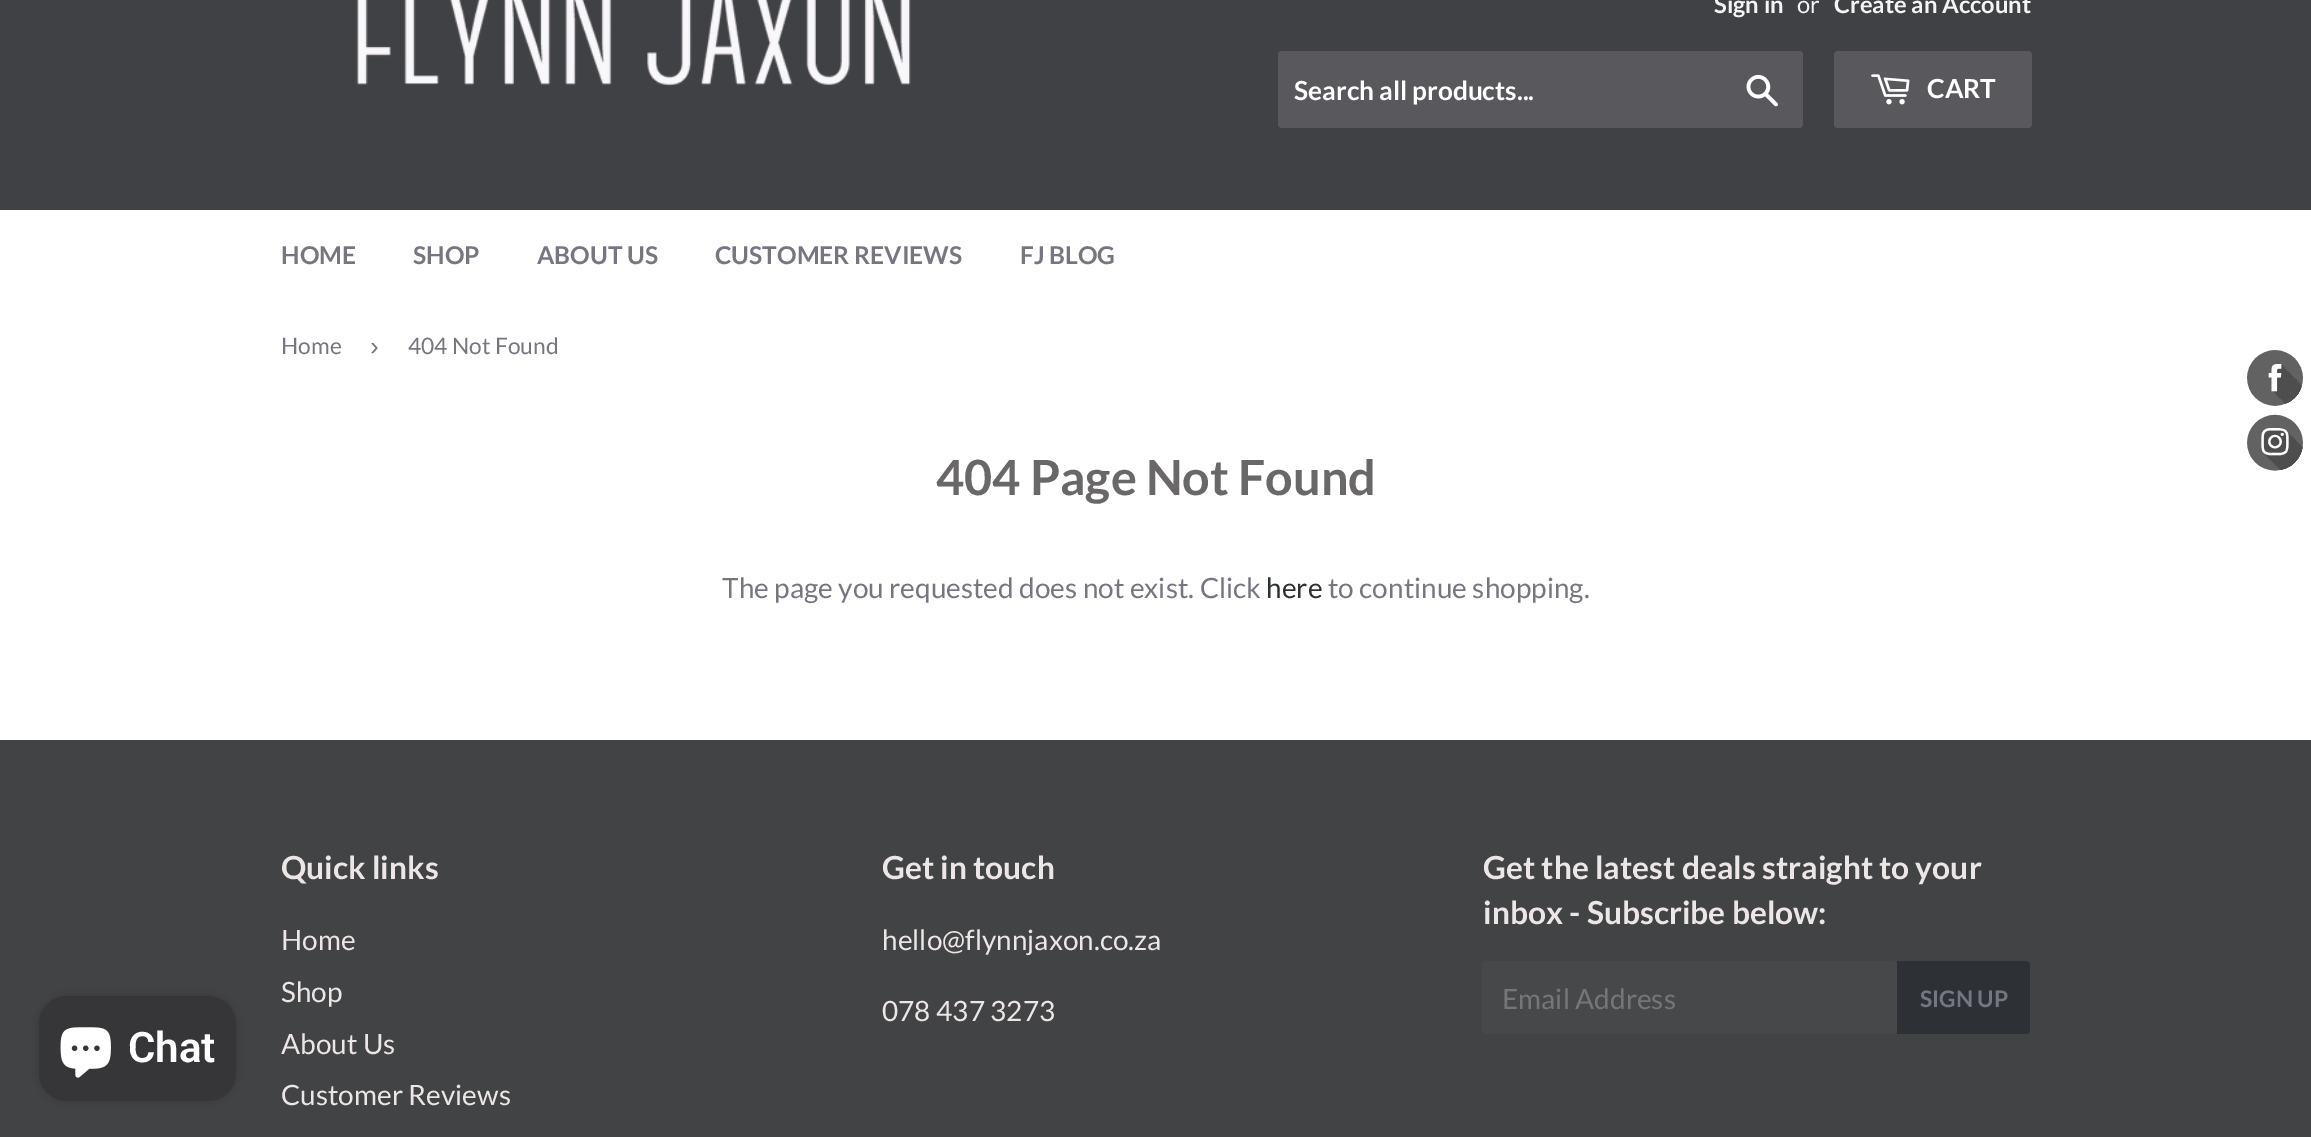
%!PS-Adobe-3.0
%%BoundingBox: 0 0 2311 1137
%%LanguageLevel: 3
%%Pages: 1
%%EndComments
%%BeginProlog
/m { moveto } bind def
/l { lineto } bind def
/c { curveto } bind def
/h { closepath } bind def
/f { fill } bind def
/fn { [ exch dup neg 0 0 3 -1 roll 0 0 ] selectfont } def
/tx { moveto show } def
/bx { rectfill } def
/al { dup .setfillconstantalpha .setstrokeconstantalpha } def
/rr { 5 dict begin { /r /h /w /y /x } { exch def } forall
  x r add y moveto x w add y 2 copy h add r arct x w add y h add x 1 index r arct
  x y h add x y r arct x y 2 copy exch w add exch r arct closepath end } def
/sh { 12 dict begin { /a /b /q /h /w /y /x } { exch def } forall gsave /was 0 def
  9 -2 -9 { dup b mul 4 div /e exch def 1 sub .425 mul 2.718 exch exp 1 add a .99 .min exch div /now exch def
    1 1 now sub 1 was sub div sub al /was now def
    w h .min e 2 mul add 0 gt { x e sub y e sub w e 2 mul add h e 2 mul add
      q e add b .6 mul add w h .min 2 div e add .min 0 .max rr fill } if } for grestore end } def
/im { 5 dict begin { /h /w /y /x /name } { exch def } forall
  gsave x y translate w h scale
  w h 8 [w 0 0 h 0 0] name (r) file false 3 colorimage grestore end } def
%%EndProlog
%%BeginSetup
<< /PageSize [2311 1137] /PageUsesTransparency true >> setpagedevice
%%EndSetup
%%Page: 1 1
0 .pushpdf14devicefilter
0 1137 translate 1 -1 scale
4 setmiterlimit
1 setgray
0 0 2311 1137 bx
0.247 0.255 0.267 setrgbcolor
0 0 2311 210 bx
(image0.raw) 356 0 555 86 im
/Lato-Bold 23.75 fn
0.961 0.957 0.957 setrgbcolor
(Sign in) 1714 13 tx
/Lato-Regular 23.75 fn
(or) 1797 13 tx
/Lato-Bold 23.75 fn
(Create an Account) 1834 13 tx
0.349 0.349 0.365 setrgbcolor
1278 51 525 77 4 rr f
/Lato-Bold 26.25 fn
1 setgray
(Search all products...) 1294 100 tx
(image1.raw) 1746 74 32 33 im
0.349 0.349 0.365 setrgbcolor
1834 51 198 77 4 rr f
(image2.raw) 1871 74 39 31 im
1 setgray
(CART) 1927 98 tx
/Lato-Bold 24.5 fn
0.463 0.463 0.506 setrgbcolor
(HOME) 281 264 tx
(SHOP) 413 264 tx
(ABOUT US) 537 264 tx
(CUSTOMER REVIEWS) 715 264 tx
(FJ BLOG) 1020 264 tx
/Lato-Regular 22.75 fn
(Home) 281 354 tx
/LiberationSans-Regular 26.25 fn
0.463 setgray
(›) 370 355 tx
/Lato-Regular 22.75 fn
0.463 0.463 0.506 setrgbcolor
(404 Not Found) 408 354 tx
/Lato-Bold 48.5 fn
0.412 0.404 0.404 setrgbcolor
(404 Page Not Found) 936 495 tx
/Lato-Regular 28 fn
0.463 0.463 0.506 setrgbcolor
(The page you requested does not exist. Click) 722 598 tx
0.176 0.188 0.192 setrgbcolor
(here) 1266 598 tx
0.463 0.463 0.506 setrgbcolor
(to continue shopping.) 1328 598 tx
(image3.raw) 2247 350 56 121 im
0.255 0.263 0.267 setrgbcolor
0 740 2311 397 bx
0 setgray
39 996 197 105 28 4.5 0.15 sh
0.212 0.212 0.22 setrgbcolor
39 996 197 105 28 rr f
(image4.raw) 60 1027 51 51 im
/Roboto-SemiBold 42 fn
1 setgray
(Chat) 128 1062 tx
/Lato-Bold 31.75 fn
0.929 0.902 0.902 setrgbcolor
(Quick links) 281 879 tx
/Lato-Regular 28 fn
(Home) 281 950 tx
(Shop) 281 1002 tx
(About Us) 281 1054 tx
(Customer Reviews) 281 1105 tx
/Lato-Bold 31.75 fn
(Get in touch) 882 879 tx
/Lato-Regular 28 fn
(hello@flynnjaxon.co.za) 882 950 tx
(078 437 3273) 882 1021 tx
/Lato-Bold 31.75 fn
(Get the latest deals straight to your) 1483 879 tx
(inbox - Subscribe below:) 1483 924 tx
0.275 0.282 0.29 setrgbcolor
1482 961 415 73 4 rr f
/Lato-Regular 28 fn
0.463 setgray
(Email Address) 1502 1009 tx
0.176 0.188 0.204 setrgbcolor
1897 961 m 2026 961 l 2028 961 2030 963 2030 965 c 2030 1030 l 2030 1032 2028 1034 2026 1034 c 1897 1034 l h f
/Lato-Bold 22.75 fn
0.463 0.463 0.506 setrgbcolor
(SIGN UP) 1920 1007 tx
.poppdf14devicefilter showpage
%%EOF
